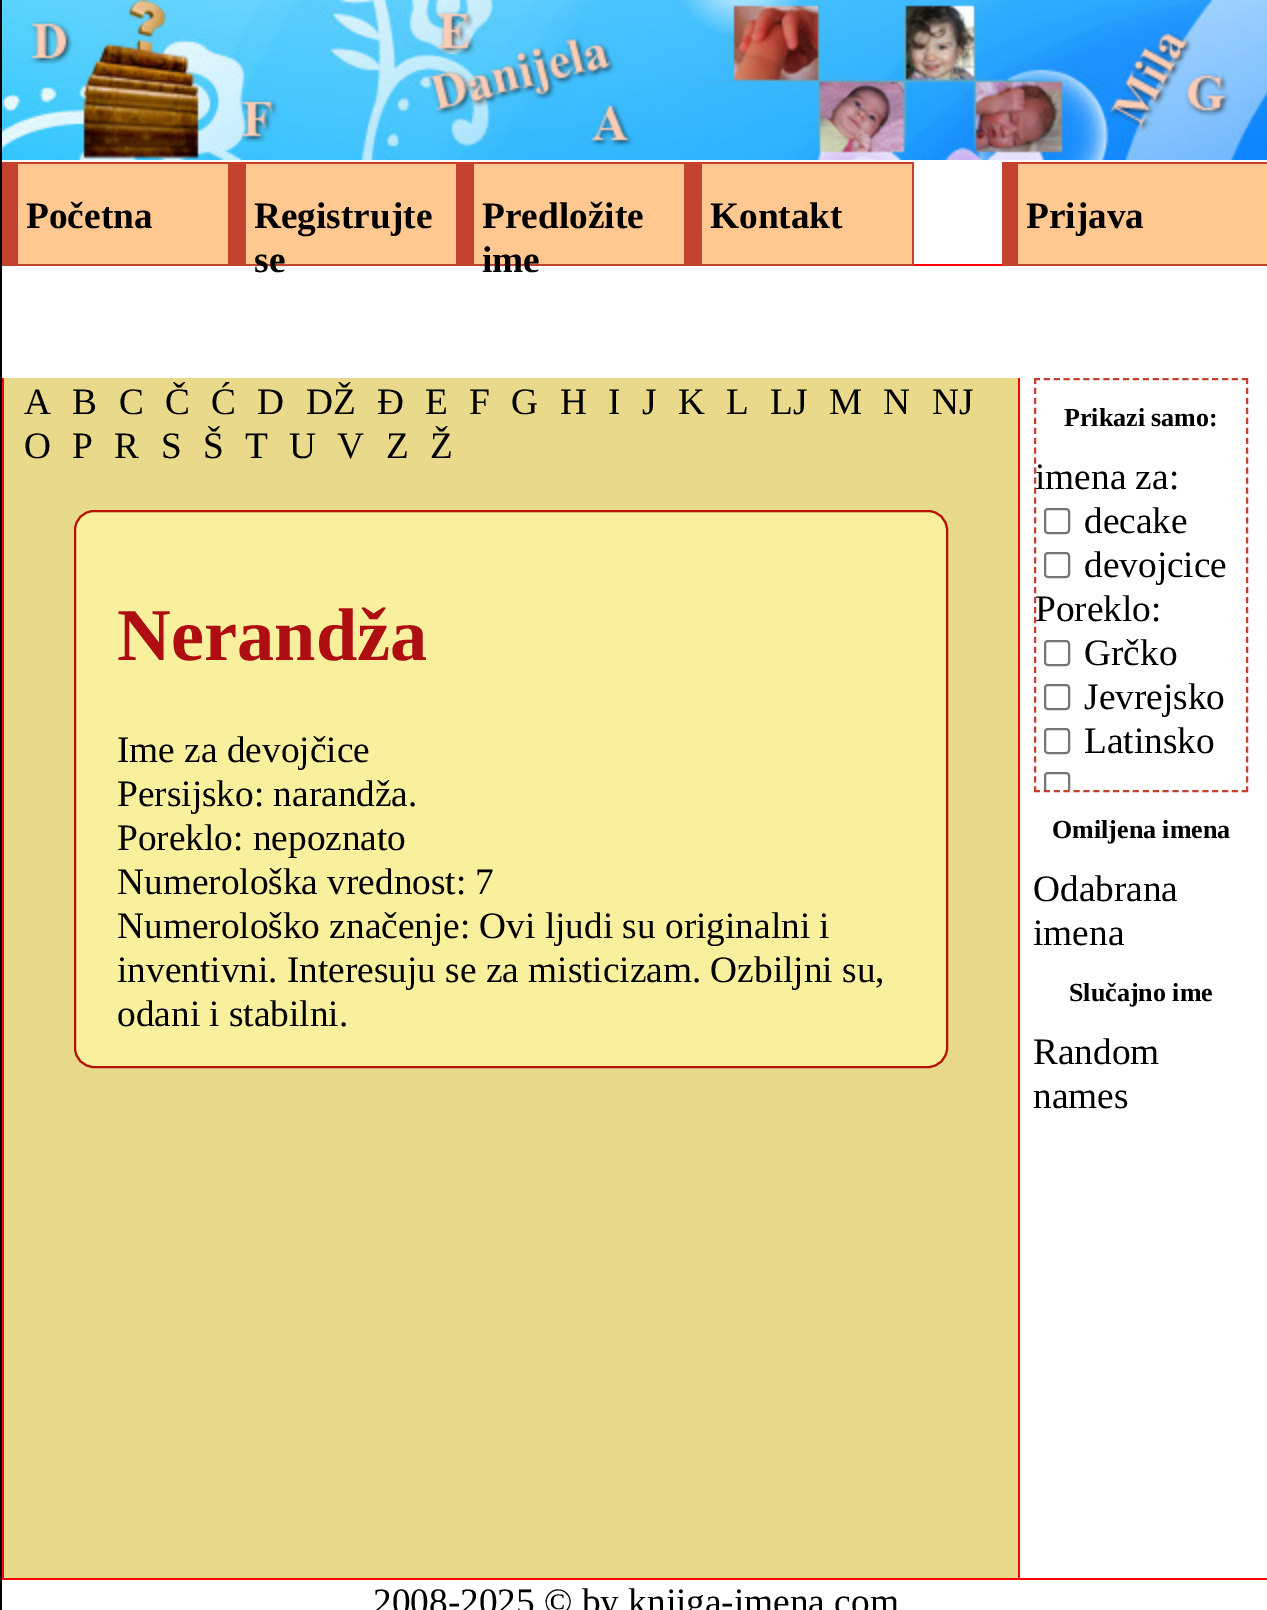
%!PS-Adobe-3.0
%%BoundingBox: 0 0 1267 1610
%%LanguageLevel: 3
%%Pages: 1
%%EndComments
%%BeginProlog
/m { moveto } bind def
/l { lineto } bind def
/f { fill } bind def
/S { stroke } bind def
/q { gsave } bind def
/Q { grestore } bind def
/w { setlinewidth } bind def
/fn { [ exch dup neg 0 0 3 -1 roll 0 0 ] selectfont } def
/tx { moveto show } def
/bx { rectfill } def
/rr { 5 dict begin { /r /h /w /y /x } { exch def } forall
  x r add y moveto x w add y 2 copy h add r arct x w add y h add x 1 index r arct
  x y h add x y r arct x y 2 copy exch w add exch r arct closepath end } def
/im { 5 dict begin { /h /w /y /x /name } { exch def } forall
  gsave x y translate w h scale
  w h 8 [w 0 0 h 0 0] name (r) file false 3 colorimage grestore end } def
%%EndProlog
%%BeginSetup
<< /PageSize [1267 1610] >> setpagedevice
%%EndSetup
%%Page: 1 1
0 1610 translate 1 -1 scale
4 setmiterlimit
1 setgray
0 0 1267 1610 bx
0 setgray
0 0 2 1610 bx
(image0.raw) 2 0 1265 160 im
1 0 0 setrgbcolor
914 264 88 2 bx
1 0.784 0.569 setrgbcolor
18 164 210 100 bx
0.765 0.255 0.176 setrgbcolor
18 162 212 2 bx
228 162 18 104 bx
18 264 212 2 bx
2 162 16 104 bx
/LiberationSerif-Bold 37.3 fn
0 setgray
(Početna) 26 228 tx
1 0.784 0.569 setrgbcolor
246 164 210 100 bx
0.765 0.255 0.176 setrgbcolor
246 162 212 2 bx
456 162 18 104 bx
246 264 212 2 bx
0 setgray
(Registrujte) 254 228 tx
(se) 254 272 tx
1 0.784 0.569 setrgbcolor
474 164 210 100 bx
0.765 0.255 0.176 setrgbcolor
474 162 212 2 bx
684 162 18 104 bx
474 264 212 2 bx
0 setgray
(Predložite) 482 228 tx
(ime) 482 272 tx
1 0.784 0.569 setrgbcolor
702 164 210 100 bx
0.765 0.255 0.176 setrgbcolor
702 162 212 2 bx
912 162 2 104 bx
702 264 212 2 bx
0 setgray
(Kontakt) 710 228 tx
1 0.784 0.569 setrgbcolor
1018 164 249 100 bx
0.765 0.255 0.176 setrgbcolor
1018 162 249 2 bx
1018 264 249 2 bx
1002 162 16 104 bx
0 setgray
(Prijava) 1026 228 tx
0.91 0.851 0.545 setrgbcolor
4 378 1014 1200 bx
1 0 0 setrgbcolor
1018 378 2 1200 bx
2 378 2 1200 bx
/LiberationSerif-Regular 37.3 fn
0 setgray
(A) 24 414 tx
(B) 72 414 tx
(C) 119 414 tx
(Č) 165 414 tx
(Ć) 211 414 tx
(D) 257 414 tx
(DŽ) 306 414 tx
(Đ) 377 414 tx
(E) 425 414 tx
(F) 469 414 tx
(G) 511 414 tx
(H) 560 414 tx
(I) 608 414 tx
(J) 642 414 tx
(K) 678 414 tx
(L) 726 414 tx
(LJ) 770 414 tx
(M) 829 414 tx
(N) 883 414 tx
(NJ) 932 414 tx
(O) 24 458 tx
(P) 72 458 tx
(R) 114 458 tx
(S) 161 458 tx
(Š) 203 458 tx
(T) 245 458 tx
(U) 289 458 tx
(V) 337 458 tx
(Z) 386 458 tx
(Ž) 430 458 tx
0.973 0.941 0.616 setrgbcolor
75 511 872 556 19 rr q f Q
0.718 0.071 0 setrgbcolor
2 w
S
/LiberationSerif-Bold 74.5 fn
0.682 0.051 0.067 setrgbcolor
(Nerandža) 117 660 tx
/LiberationSerif-Regular 37.3 fn
0 setgray
(Ime za devojčice) 117 762 tx
(Persijsko: narandža.) 117 806 tx
(Poreklo: nepoznato) 117 850 tx
(Numerološka vrednost: 7) 117 894 tx
(Numerološko značenje: Ovi ljudi su originalni i) 117 938 tx
(inventivni. Interesuju se za misticizam. Ozbiljni su,) 117 982 tx
(odani i stabilni.) 117 1026 tx
0.765 0.255 0.176 setrgbcolor
[6 3.9] 0 setdash
1034 379 m 1248 379 l S
[6 3.96] 0 setdash
1247 378 m 1247 792 l S
[6 3.9] 0 setdash
1034 791 m 1248 791 l S
[6 3.96] 0 setdash
1035 378 m 1035 792 l S
/LiberationSerif-Bold 26 fn
0 setgray
(Prikazi samo:) 1064 426 tx
/LiberationSerif-Regular 37.3 fn
(imena za:) 1035 489 tx
0.463 setgray
[] 0 setdash
1045 509 24 24 3 rr S
0 setgray
(decake) 1084 533 tx
0.463 setgray
1045 553 24 24 3 rr S
0 setgray
(devojcice) 1084 577 tx
(Poreklo:) 1035 621 tx
0.463 setgray
1045 641 24 24 3 rr S
0 setgray
(Grčko) 1084 665 tx
0.463 setgray
1045 685 24 24 3 rr S
0 setgray
(Jevrejsko) 1084 709 tx
0.463 setgray
1045 729 24 24 3 rr S
0 setgray
(Latinsko) 1084 753 tx
q
1036 380 210 410 rectclip
0.463 setgray
1045 773 24 24 3 rr S
Q
/LiberationSerif-Bold 26 fn
(Omiljena imena) 1052 838 tx
/LiberationSerif-Regular 37.3 fn
(Odabrana) 1033 901 tx
(imena) 1033 945 tx
/LiberationSerif-Bold 26 fn
(Slučajno ime) 1069 1001 tx
/LiberationSerif-Regular 37.3 fn
(Random) 1033 1064 tx
(names) 1033 1108 tx
1 0 0 setrgbcolor
2 1578 1265 2 bx
0 setgray
(2008-2025 © by knjiga-imena.com) 373 1614 tx
showpage
%%EOF
